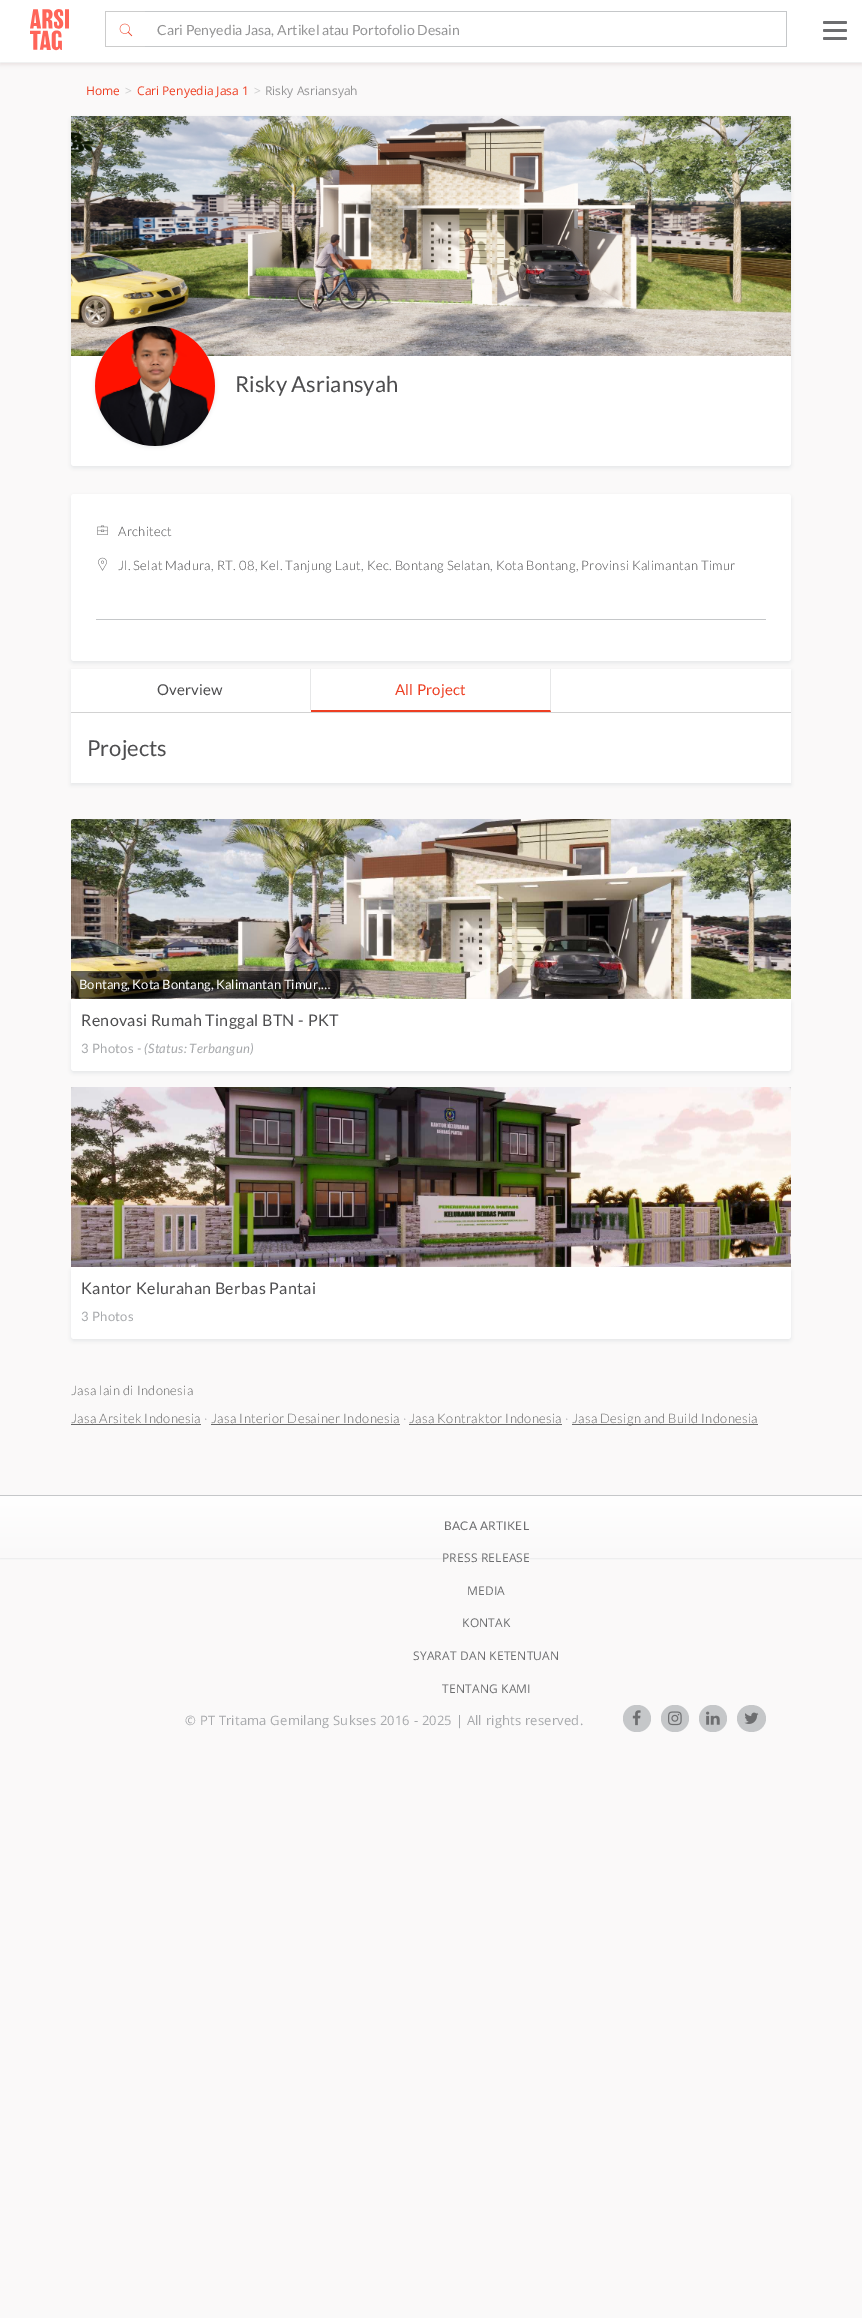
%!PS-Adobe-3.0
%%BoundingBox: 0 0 862 2318
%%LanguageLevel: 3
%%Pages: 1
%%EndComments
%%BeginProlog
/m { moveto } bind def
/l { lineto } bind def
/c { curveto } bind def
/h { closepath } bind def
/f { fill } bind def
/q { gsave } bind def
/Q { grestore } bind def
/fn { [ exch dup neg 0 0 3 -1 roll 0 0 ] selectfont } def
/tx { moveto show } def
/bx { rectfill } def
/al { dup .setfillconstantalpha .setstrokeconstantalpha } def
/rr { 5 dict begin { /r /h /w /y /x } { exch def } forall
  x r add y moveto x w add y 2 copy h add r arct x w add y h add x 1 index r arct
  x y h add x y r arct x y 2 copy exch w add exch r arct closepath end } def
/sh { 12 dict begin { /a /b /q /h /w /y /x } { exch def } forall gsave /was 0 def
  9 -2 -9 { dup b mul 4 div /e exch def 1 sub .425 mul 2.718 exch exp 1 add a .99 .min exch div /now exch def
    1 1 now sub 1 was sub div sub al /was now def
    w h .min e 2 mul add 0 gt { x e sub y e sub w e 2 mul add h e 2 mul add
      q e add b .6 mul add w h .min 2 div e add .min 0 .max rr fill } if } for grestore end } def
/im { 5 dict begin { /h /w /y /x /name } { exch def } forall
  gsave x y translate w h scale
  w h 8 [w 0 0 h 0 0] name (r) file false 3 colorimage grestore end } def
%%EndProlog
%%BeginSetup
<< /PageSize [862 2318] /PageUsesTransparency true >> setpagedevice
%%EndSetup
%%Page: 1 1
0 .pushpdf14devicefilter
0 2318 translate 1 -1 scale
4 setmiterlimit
0.98 0.976 0.976 setrgbcolor
0 0 862 2318 bx
0.894 0.855 0.855 setrgbcolor
0 0 862 64 0 2.5 1 sh
1 setgray
0 0 862 63 bx
q
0 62 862 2 rectclip
0.902 0.906 0.91 setrgbcolor
0 0 862 63 0 0.5 0.7 sh
Q
(image0.raw) 30 9 39 42 im
0.427 0.431 0.439 setrgbcolor
823 21 24 3 1.5 rr f
823 29 24 3 1.5 rr f
823 37 24 3 1.5 rr f
0.8 setgray
105 11 41 1 bx
105 46 41 1 bx
105 11 1 36 bx
(image1.raw) 119 23 14 14 im
0.773 0.78 0.788 setrgbcolor
145 11 642 1 bx
786 11 1 36 bx
145 46 642 1 bx
/Lato-Regular 14 fn
0.58 0.58 0.584 setrgbcolor
(Cari Penyedia Jasa, Artikel atau Portofolio Desain) 157 35 tx
/OpenSans-Regular 12 fn
0.929 0.247 0.137 setrgbcolor
(Home) 86 95 tx
0.8 setgray
(>) 125 95 tx
0.929 0.247 0.137 setrgbcolor
(Cari Penyedia Jasa 1) 137 95 tx
0.8 setgray
(>) 254 95 tx
0.58 0.58 0.584 setrgbcolor
(Risky Asriansyah) 265 95 tx
0.902 0.906 0.91 setrgbcolor
71 118 720 350 3 2 1 sh
1 setgray
71 116 720 350 3 rr f
(image2.raw) 71 116 720 240 im
0.902 0.906 0.91 setrgbcolor
95 327 120 120 60 2 1 sh
(image3.raw) 95 326 120 120 im
/Lato-Regular 22 fn
0.302 0.302 0.31 setrgbcolor
(Risky Asriansyah) 235 392 tx
0.902 0.906 0.91 setrgbcolor
71 496 720 167 3 2 1 sh
1 setgray
71 494 720 167 3 rr f
0.773 0.78 0.788 setrgbcolor
96 619 670 1 bx
(image4.raw) 97 525 11 10 im
/Lato-Light 13 fn
0.302 0.302 0.31 setrgbcolor
118 536 m 0.33 0 (Architect) ashow
(image5.raw) 98 557 9 14 im
118 570 m 0.33 0 (Jl. Selat Madura, RT. 08, Kel. Tanjung Laut, Kec. Bontang Selatan, Kota Bontang, Provinsi Kalimantan Timur) ashow
0.902 0.906 0.91 setrgbcolor
71 671 720 114 0 2 1 sh
1 setgray
71 669 720 114 bx
0.824 setgray
71 712 720 1 bx
0.902 0.906 0.91 setrgbcolor
310 669 1 41 bx
/Lato-Regular 15 fn
0.302 0.302 0.31 setrgbcolor
157 695 m 0.2 0 (Overview) ashow
0.902 0.906 0.91 setrgbcolor
551 669 m 551 712 l 550 710 l 550 669 l h f
0.929 0.247 0.137 setrgbcolor
551 712 m 311 712 l 311 710 l 550 710 l h f
395 695 m 0.2 0 (All Project) ashow
/Lato-Regular 22 fn
0.302 0.302 0.31 setrgbcolor
(Projects) 87 756 tx
0.824 setgray
71 819 720 3 bx
(image6.raw) 71 819 720 180 im
0.902 0.906 0.91 setrgbcolor
71 1001 720 72 3 2 1 sh
0.6 al
0 setgray
71 971 269 27 bx
/Lato-Regular 13 fn
1 al
1 setgray
(Bontang, Kota Bontang, Kalimantan Timur,…) 79 989 tx
71 999 m 791 999 l 791 1068 l 791 1069.5 789.5 1071 788 1071 c 74 1071 l 72.5 1071 71 1069.5 71 1068 c h f
/Lato-Regular 16 fn
0.302 0.302 0.31 setrgbcolor
81 1026 m 0.33 0 (Renovasi Rumah Tinggal BTN - PKT) ashow
/Lato-Regular 13 fn
0.651 0.659 0.671 setrgbcolor
81 1053 m 0.33 0 (3 Photos -) ashow
/Lato-Italic 13 fn
144 1053 m 0.33 0 (\(Status: Terbangun\)) ashow
0.824 setgray
71 1087 720 3 bx
(image7.raw) 71 1087 720 180 im
0.902 0.906 0.91 setrgbcolor
71 1269 720 72 3 2 1 sh
1 setgray
71 1267 m 791 1267 l 791 1336 l 791 1337.5 789.5 1339 788 1339 c 74 1339 l 72.5 1339 71 1337.5 71 1336 c h f
/Lato-Regular 16 fn
0.302 0.302 0.31 setrgbcolor
81 1294 m 0.33 0 (Kantor Kelurahan Berbas Pantai) ashow
/Lato-Regular 13 fn
0.651 0.659 0.671 setrgbcolor
81 1321 m 0.33 0 (3 Photos) ashow
/Lato-Light 13 fn
0.408 setgray
71 1395 m 0.33 0 (Jasa lain di Indonesia) ashow
71 1423 m 0.33 0 (Jasa Arsitek Indonesia) ashow
71 1424 130 1 bx
0.651 0.659 0.671 setrgbcolor
204 1423 m 0.33 0 (·) ashow
0.408 setgray
211 1423 m 0.33 0 (Jasa Interior Desainer Indonesia) ashow
211 1424 189 1 bx
0.651 0.659 0.671 setrgbcolor
403 1423 m 0.33 0 (·) ashow
0.408 setgray
409 1423 m 0.33 0 (Jasa Kontraktor Indonesia) ashow
409 1424 153 1 bx
0.651 0.659 0.671 setrgbcolor
565 1423 m 0.33 0 (·) ashow
0.408 setgray
572 1424 186 1 bx
572 1423 m 0.33 0 (Jasa Design and Build Indonesia) ashow
0.902 0.906 0.91 setrgbcolor
0 1496 862 63 0 0.5 0.7 sh
q 0 1496 m 862 1496 l 862 1558 l 0 1558 l h clip newpath
<< /ShadingType 2 /ColorSpace /DeviceRGB /Coords [431 1495 431 1558] /Extend [true true] /Function << /FunctionType 2 /Domain [0 1] /C0 [1 1 1] /C1 [0.98 0.976 0.976] /N 1 >> >> shfill Q
0.773 0.78 0.788 setrgbcolor
0 1495 862 1 bx
/Lato-Regular 12 fn
0.427 0.431 0.439 setrgbcolor
444 1530 m 0.2 0 (BACA ARTIKEL) ashow
/OpenSans-Regular 12 fn
442 1562 m 0.2 0 (PRESS RELEASE) ashow
467 1595 m 0.2 0 (MEDIA) ashow
462 1627 m 0.2 0 (KONTAK) ashow
413 1660 m 0.2 0 (SYARAT DAN KETENTUAN) ashow
442 1693 m 0.2 0 (TENTANG KAMI) ashow
/OpenSans-Regular 13 fn
0.651 0.659 0.671 setrgbcolor
185 1725 m 0.2 0 (© PT Tritama Gemilang Sukses 2016 - 2025 | All rights reserved.) ashow
0.773 0.78 0.788 setrgbcolor
623 1705 28 27 13.5 rr f
(image8.raw) 632 1710 9 16 im
661 1705 28 27 13.5 rr f
(image9.raw) 668 1711 14 15 im
699 1705 28 27 13.5 rr f
(image10.raw) 706 1711 14 14 im
751.5 1705 m 759.5 1705 766 1711 766 1718.5 c 766 1726 759.5 1732 751.5 1732 c 743.5 1732 737 1726 737 1718.5 c 737 1711 743.5 1705 751.5 1705 c h f
(image11.raw) 744 1712 15 12 im
.poppdf14devicefilter showpage
%%EOF
